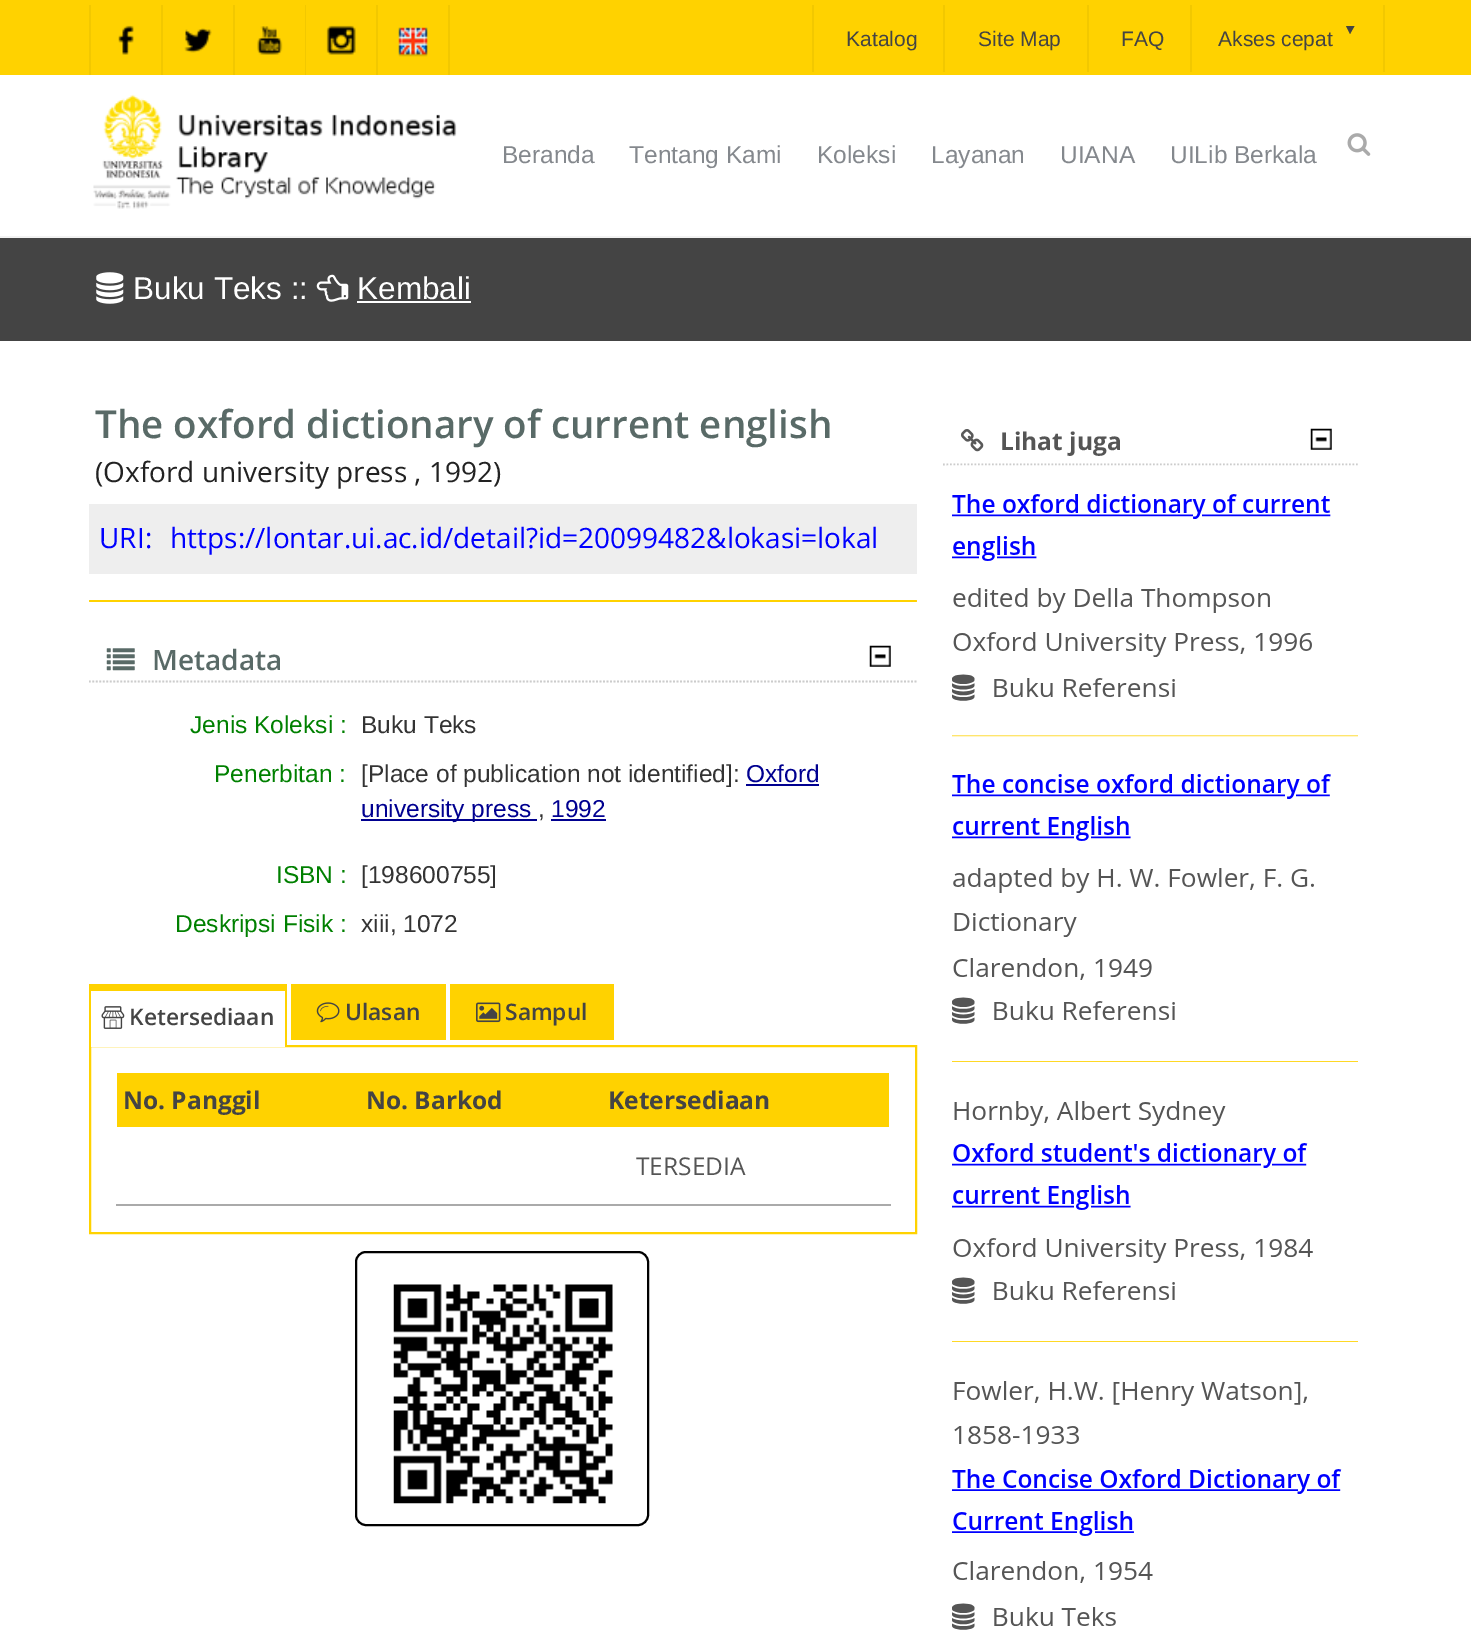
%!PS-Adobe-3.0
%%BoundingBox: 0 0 1471 1642
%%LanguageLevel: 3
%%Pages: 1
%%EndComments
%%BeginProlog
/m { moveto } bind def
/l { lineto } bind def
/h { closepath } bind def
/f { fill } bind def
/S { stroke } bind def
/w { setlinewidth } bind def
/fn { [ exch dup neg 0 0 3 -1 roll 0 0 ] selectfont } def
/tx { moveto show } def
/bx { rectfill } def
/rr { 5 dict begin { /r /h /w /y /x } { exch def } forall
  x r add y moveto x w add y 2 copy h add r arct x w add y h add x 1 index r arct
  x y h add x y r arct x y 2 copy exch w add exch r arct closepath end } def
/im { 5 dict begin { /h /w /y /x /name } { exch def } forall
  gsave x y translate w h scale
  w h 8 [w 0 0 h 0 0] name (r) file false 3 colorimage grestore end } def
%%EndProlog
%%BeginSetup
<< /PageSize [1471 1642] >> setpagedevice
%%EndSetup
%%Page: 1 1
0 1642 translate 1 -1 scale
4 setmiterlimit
1 setgray
0 0 1471 1642 bx
1 0.824 0 setrgbcolor
0 0 1471 75 bx
0.949 0.784 0 setrgbcolor
89 5 2 70 bx
161 5 2 70 bx
(image0.raw) 118 25 16 30 im
233 5 2 70 bx
(image1.raw) 184 28 28 25 im
305 5 1 70 bx
(image2.raw) 257 26 26 29 im
376 5 2 70 bx
(image3.raw) 326 25 30 30 im
448 5 2 70 bx
(image4.raw) 398 27 30 30 im
812 5 2 67 bx
/LiberationSans-Regular 21 fn
0.267 setgray
(Katalog) 846 46 tx
0.949 0.784 0 setrgbcolor
943 5 2 67 bx
0.267 setgray
(Site Map) 978 46 tx
0.949 0.784 0 setrgbcolor
1087 5 2 67 bx
0.267 setgray
(FAQ) 1121 46 tx
0.949 0.784 0 setrgbcolor
1383 5 2 67 bx
1190 5 2 67 bx
0.267 setgray
(Akses cepat) 1218 46 tx
1354.5 26 m 1350 34 l 1346 26 l h f
0.949 setgray
0 236 1471 2 bx
(image5.raw) 93 94 364 115 im
/LiberationSans-Regular 24.5 fn
0.518 0.533 0.553 setrgbcolor
(Beranda) 502 163 tx
(Tentang Kami) 629 163 tx
(Koleksi) 817 163 tx
(Layanan) 931 163 tx
(UIANA) 1060 163 tx
(UILib Berkala) 1170 163 tx
(image6.raw) 1347 133 24 23 im
0.267 setgray
0 238 1471 103 bx
(image7.raw) 96 272 28 32 im
/LiberationSans-Regular 31.5 fn
1 setgray
(Buku Teks ::) 133 299 tx
(image8.raw) 316 274 33 28 im
(Kembali) 357 299 tx
357 301 114 2 bx
/OpenSans-SemiBold 38.5 fn
0.349 0.416 0.404 setrgbcolor
(The oxford dictionary of current english) 95 438 tx
/OpenSans-Regular 28 fn
0.133 setgray
(\(Oxford university press , 1992\)) 95 482 tx
0.933 setgray
89 504 828 70 bx
0 0 1 setrgbcolor
(URI:) 99 548 tx
(https://lontar.ui.ac.id/detail?id=20099482&lokasi=lokal) 170 548 tx
1 0.824 0 setrgbcolor
89 600 828 2 1 rr f
0.8 setgray
1.8 w
[1.75 1.75] 0 setdash
89 681.5 m 917 681.5 l S
(image9.raw) 106 648 29 23 im
/OpenSans-SemiBold 28 fn
0.349 0.416 0.404 setrgbcolor
(Metadata) 152 670 tx
(image10.raw) 869 645 22 22 im
/LiberationSans-Regular 24.5 fn
0 0.502 0 setrgbcolor
(Jenis Koleksi :) 190 733 tx
0.2 setgray
(Buku Teks) 361 733 tx
0 0.502 0 setrgbcolor
(Penerbitan :) 214 782 tx
0.2 setgray
([Place of publication not identified]:) 361 782 tx
0 0 0.565 setrgbcolor
(Oxford) 746 782 tx
746 784 73 2 bx
361 819 176 2 bx
(university press) 361 817 tx
0.2 setgray
(,) 538 817 tx
0 0 0.565 setrgbcolor
(1992) 551 817 tx
551 819 55 2 bx
0 0.502 0 setrgbcolor
(ISBN :) 276 883 tx
0.2 setgray
([198600755]) 361 883 tx
0 0.502 0 setrgbcolor
(Deskripsi Fisik :) 175 932 tx
0.2 setgray
(xiii, 1072) 361 932 tx
1 0.824 0 setrgbcolor
2 w
[] 0 setdash
90 1046 826 187 rectstroke
1 setgray
91 1045 194 2 bx
1 0.824 0 setrgbcolor
89 984 198 7 bx
285 984 2 63 bx
89 984 2 63 bx
(image11.raw) 101 1006 24 23 im
/OpenSans-SemiBold 22.75 fn
0.267 setgray
(Ketersediaan) 129 1025 tx
1 0.824 0 setrgbcolor
291 984 155 56 bx
(image12.raw) 316 1002 24 21 im
0.267 setgray
(Ulasan) 345 1020 tx
1 0.824 0 setrgbcolor
450 984 164 56 bx
(image13.raw) 476 1002 25 21 im
0.267 setgray
(Sampul) 505 1020 tx
1 0.824 0 setrgbcolor
117 1073 772 54 bx
/OpenSans-Bold 24.5 fn
0.267 setgray
(No. Panggil) 123 1109 tx
(No. Barkod) 366 1109 tx
(Ketersediaan) 608 1109 tx
0.667 setgray
116 1204 775 2 bx
/OpenSans-Regular 24.5 fn
0.333 setgray
(TERSEDIA) 636 1175 tx
0 setgray
356 1252 292 273 10 rr S
(image14.raw) 393 1284 220 220 im
0.8 setgray
1.8 w
[1.75 1.75] 0 setdash
943 464.5 m 1358 464.5 l S
(image15.raw) 961 429 23 23 im
/OpenSans-Bold 24.5 fn
0.333 setgray
(Lihat juga) 1000 450 tx
(image10.raw) 1310 428 22 22 im
(image16.raw) 947 465 411 1165 im
showpage
%%EOF
